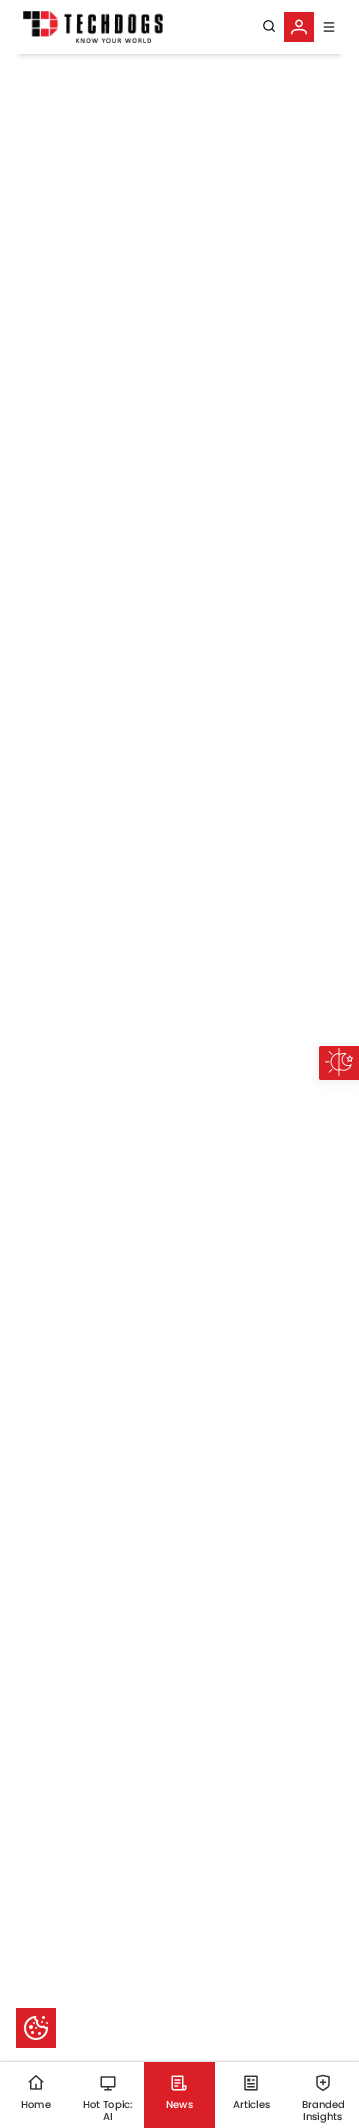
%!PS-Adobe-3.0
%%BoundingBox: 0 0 359 2128
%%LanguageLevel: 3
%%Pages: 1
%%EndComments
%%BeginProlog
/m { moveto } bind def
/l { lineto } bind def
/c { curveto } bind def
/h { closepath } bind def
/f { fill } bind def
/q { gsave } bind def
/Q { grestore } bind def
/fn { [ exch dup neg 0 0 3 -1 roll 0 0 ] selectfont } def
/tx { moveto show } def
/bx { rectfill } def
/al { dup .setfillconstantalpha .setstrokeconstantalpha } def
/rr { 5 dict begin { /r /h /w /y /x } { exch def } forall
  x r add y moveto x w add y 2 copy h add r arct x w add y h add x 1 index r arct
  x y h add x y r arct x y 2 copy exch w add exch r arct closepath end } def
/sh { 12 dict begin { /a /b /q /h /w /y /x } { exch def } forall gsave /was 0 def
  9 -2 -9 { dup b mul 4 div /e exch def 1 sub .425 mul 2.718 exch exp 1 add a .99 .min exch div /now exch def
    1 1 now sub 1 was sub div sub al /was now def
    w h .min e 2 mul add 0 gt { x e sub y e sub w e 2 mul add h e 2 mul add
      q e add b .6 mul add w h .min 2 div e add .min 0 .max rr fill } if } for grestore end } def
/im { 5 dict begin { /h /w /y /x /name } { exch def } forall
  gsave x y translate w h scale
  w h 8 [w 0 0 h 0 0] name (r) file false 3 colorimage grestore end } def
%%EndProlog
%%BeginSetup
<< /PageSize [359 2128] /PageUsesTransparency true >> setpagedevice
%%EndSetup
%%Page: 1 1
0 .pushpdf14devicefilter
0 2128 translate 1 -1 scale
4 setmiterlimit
1 setgray
0 0 359 2128 bx
q
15 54 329 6 rectclip
0.8 setgray
20 11 319 44 0 2.5 1 sh
Q
(image0.raw) 23 11 140 32 im
(image1.raw) 263 20 12 12 im
0.855 0.122 0.149 setrgbcolor
284 12 30 30 bx
(image2.raw) 291 19 16 16 im
(image3.raw) 323 22 12 10 im
0.694 setgray
319 1048 40 34 2 4.5 0.2 sh
0.855 0.122 0.149 setrgbcolor
321 1046 m 359 1046 l 359 1080 l 321 1080 l 320 1080 319 1079 319 1078 c 319 1048 l 319 1047 320 1046 321 1046 c h f
(image4.raw) 325 1047 28 29 im
16 2008 40 40 bx
(image5.raw) 23 2015 26 26 im
q
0 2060 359 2 rectclip
0 setgray
0 2062 359 66 0 1.5 0.3 sh
Q
(image6.raw) 27 2075 18 15 im
/Poppins-Medium 10 fn
0.2 setgray
(Home) 21 2108 tx
(image7.raw) 100 2076 16 15 im
(Hot Topic:) 83 2108 tx
(AI) 103 2120 tx
0.855 0.122 0.149 setrgbcolor
144 2062 71 66 bx
(image8.raw) 171 2075 16 16 im
1 setgray
(News) 166 2108 tx
(image9.raw) 244 2075 14 16 im
0.2 setgray
(Articles) 233 2108 tx
(image10.raw) 316 2074 14 18 im
(Branded) 302 2108 tx
(Insights) 303 2120 tx
.poppdf14devicefilter showpage
%%EOF
